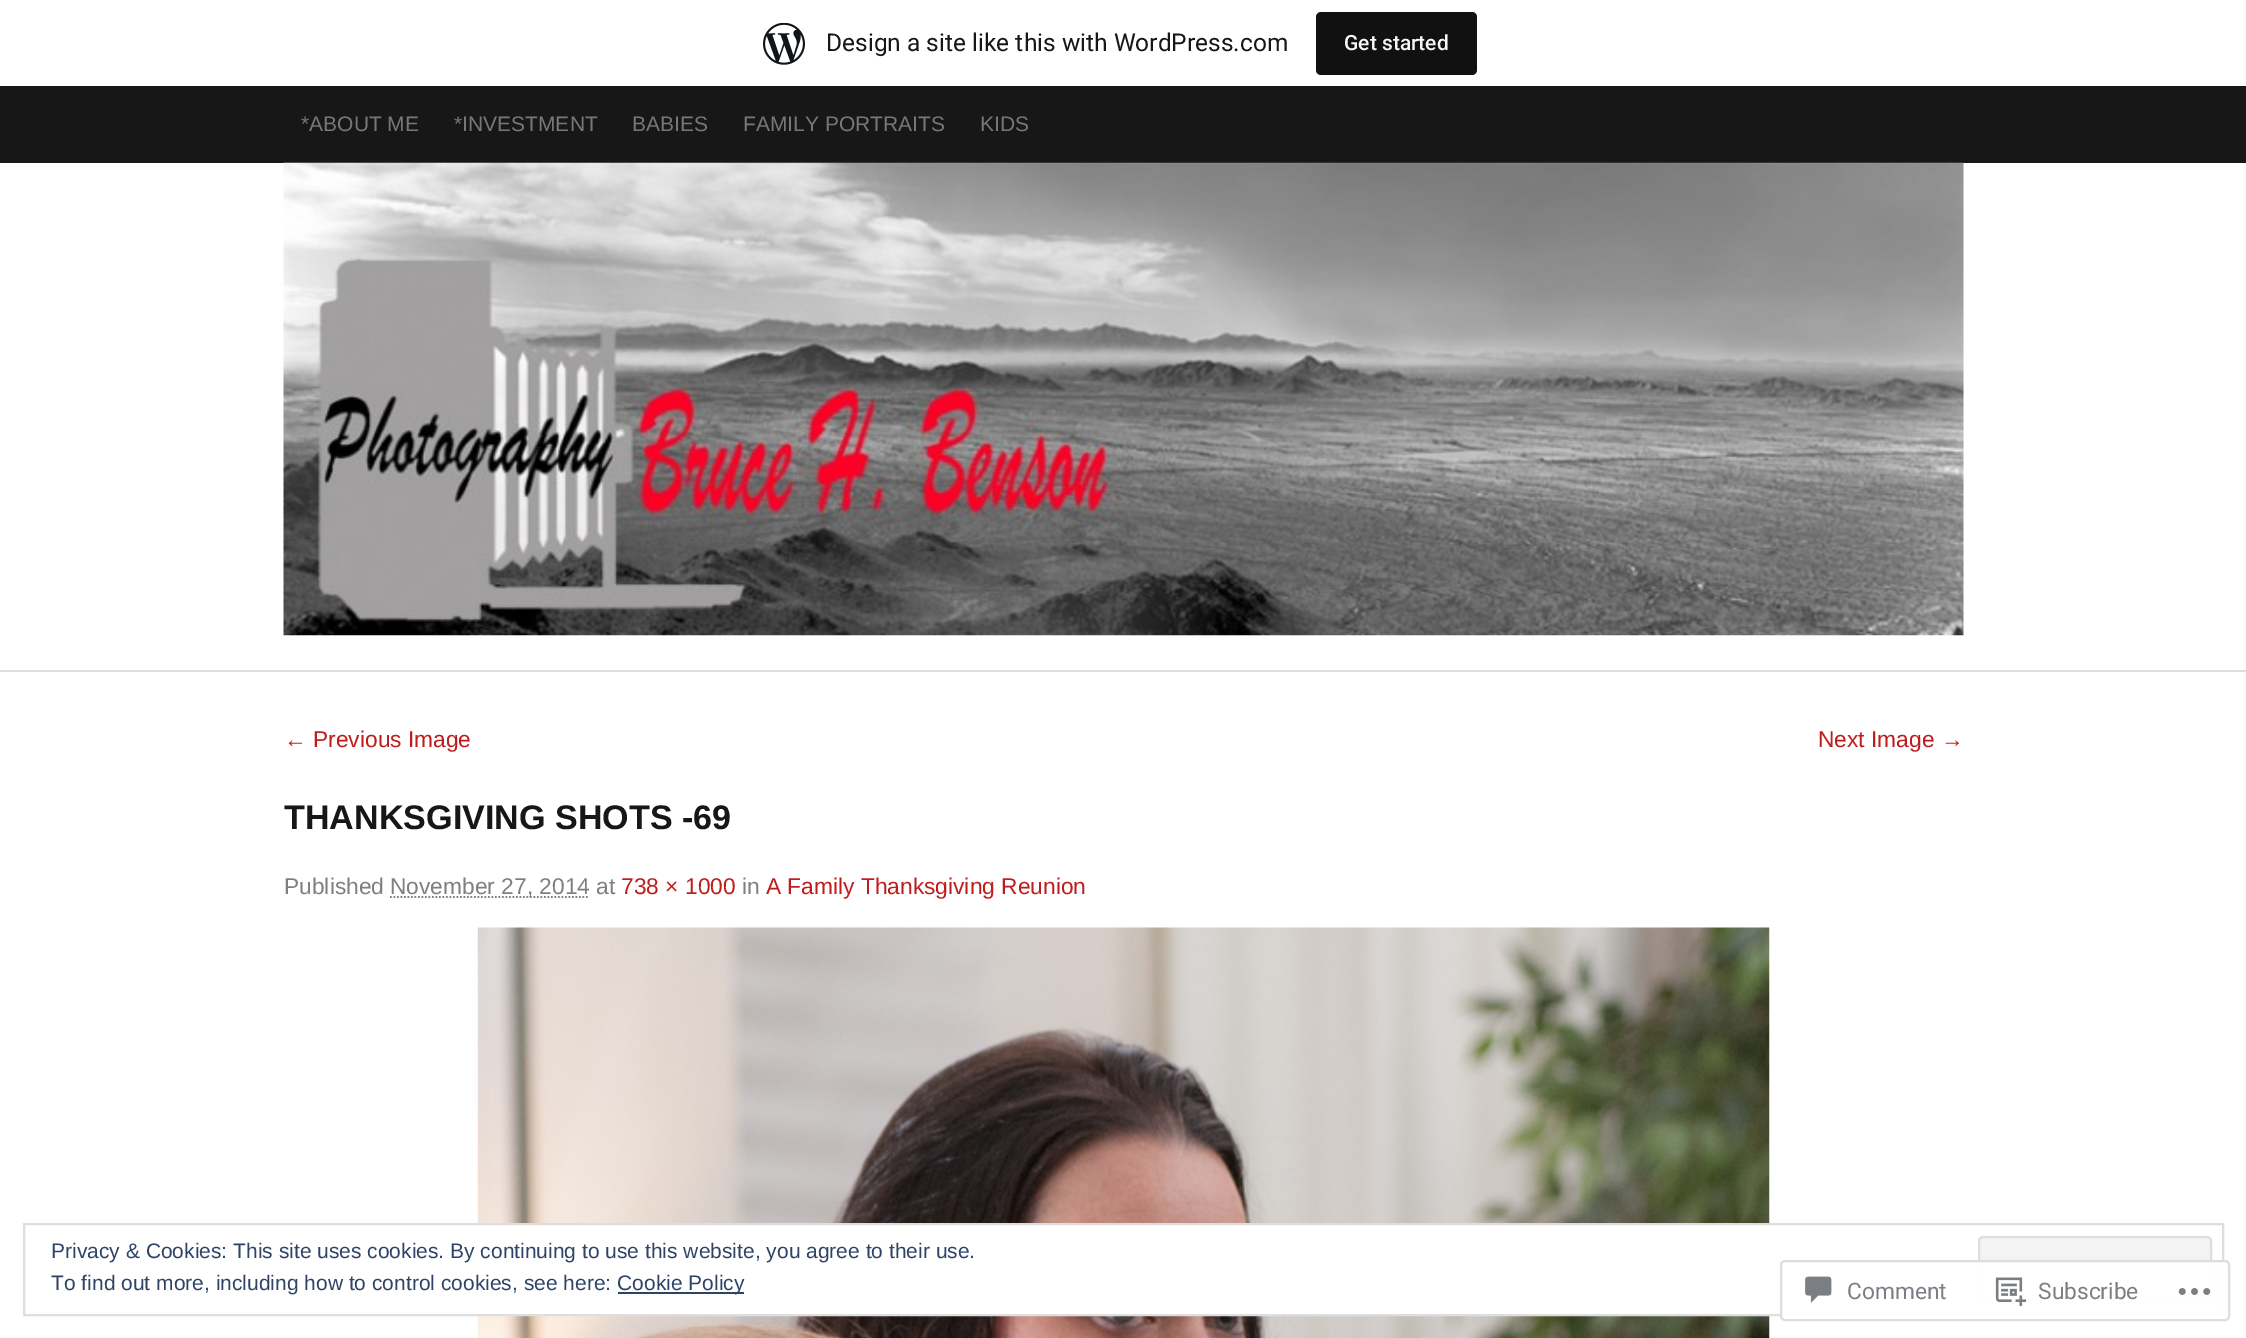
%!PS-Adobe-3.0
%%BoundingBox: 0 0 2246 1338
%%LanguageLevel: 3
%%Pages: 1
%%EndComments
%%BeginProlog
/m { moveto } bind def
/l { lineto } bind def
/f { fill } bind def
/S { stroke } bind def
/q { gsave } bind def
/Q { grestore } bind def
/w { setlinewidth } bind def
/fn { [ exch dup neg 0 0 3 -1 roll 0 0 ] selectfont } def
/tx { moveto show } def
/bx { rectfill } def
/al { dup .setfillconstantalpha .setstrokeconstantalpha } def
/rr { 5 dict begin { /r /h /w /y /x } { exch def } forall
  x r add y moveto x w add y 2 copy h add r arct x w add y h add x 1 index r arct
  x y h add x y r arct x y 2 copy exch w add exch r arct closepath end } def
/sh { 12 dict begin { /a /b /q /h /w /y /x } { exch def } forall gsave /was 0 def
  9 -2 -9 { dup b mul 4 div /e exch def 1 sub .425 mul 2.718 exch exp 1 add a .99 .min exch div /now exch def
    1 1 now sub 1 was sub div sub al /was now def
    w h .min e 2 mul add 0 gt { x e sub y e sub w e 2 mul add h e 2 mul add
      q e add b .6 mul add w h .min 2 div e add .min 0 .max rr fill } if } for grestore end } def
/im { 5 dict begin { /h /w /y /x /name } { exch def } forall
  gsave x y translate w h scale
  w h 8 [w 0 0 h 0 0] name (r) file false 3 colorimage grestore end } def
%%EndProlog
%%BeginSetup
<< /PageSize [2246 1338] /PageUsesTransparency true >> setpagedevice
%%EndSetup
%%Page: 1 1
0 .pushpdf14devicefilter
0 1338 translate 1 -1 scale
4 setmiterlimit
1 setgray
0 0 2246 1338 bx
0.09 setgray
0 86 2246 77 bx
/LiberationSans-Regular 21 fn
0.467 setgray
(*ABOUT ME) 301 131 tx
(*INVESTMENT) 454 131 tx
(BABIES) 632 131 tx
(FAMILY PORTRAITS) 743 131 tx
(KIDS) 980 131 tx
0 setgray
0 2 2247 86 0 2 0.05 sh
1 setgray
0 0 2246 86 bx
(image0.raw) 763 23 42 42 im
/Roboto-Regular 24.5 fn
0.09 setgray
(Design a site like this with WordPress.com) 826 51 tx
0.067 setgray
1316 12 161 63 5 rr f
/Roboto-Medium 21 fn
0.965 0.969 0.969 setrgbcolor
(Get started) 1344 50 tx
(image5.raw) 477 927 1293 411 im
1 setgray
477 1225 1293 89 bx
0.871 setgray
2 w
24 1224 2199 91 rectstroke
0.953 setgray
1979 1237 232 66 4 rr q f Q
0.871 setgray
S
0.98 al
1 setgray
1780 1260 450 61 5 rr f
0.863 0.863 0.871 setrgbcolor
1781 1261 448 59 4 rr S
1 al
(image1.raw) 1805 1276 27 27 im
/Roboto-Regular 22.75 fn
0.482 0.498 0.522 setrgbcolor
(Comment) 1847 1299 tx
(image2.raw) 1995 1277 32 29 im
0.498 setgray
(Subscribe) 2038 1299 tx
(image3.raw) 2178 1288 33 7 im
0.871 setgray
0 670 2246 2 bx
(image4.raw) 283 162 1681 474 im
/LiberationSans-Regular 22.75 fn
0.749 0.114 0.114 setrgbcolor
(← Previous Image) 284 747 tx
(Next Image →) 1818 747 tx
q
284 725 1680 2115 rectclip
/LiberationSans-Bold 34.1 fn
0.09 setgray
(THANKSGIVING SHOTS -69) 284 829 tx
Q
0.498 setgray
(Published) 284 894 tx
1.8 w
[1.75 1.75] 0 setdash
390 897 m 589.5 897 l S
(November 27, 2014 at) 390 894 tx
0.749 0.114 0.114 setrgbcolor
(738 × 1000) 621 894 tx
0.498 setgray
(in) 742 894 tx
0.749 0.114 0.114 setrgbcolor
(A Family Thanksgiving Reunion) 766 894 tx
/LiberationSans-Regular 21 fn
0.18 0.267 0.404 setrgbcolor
(Privacy & Cookies: This site uses cookies. By continuing to use this website, you agree to their use.) 51 1258 tx
(To find out more, including how to control cookies, see here:) 51 1290 tx
618 1292 126 2 bx
(Cookie Policy) 617 1290 tx
.poppdf14devicefilter showpage
%%EOF
